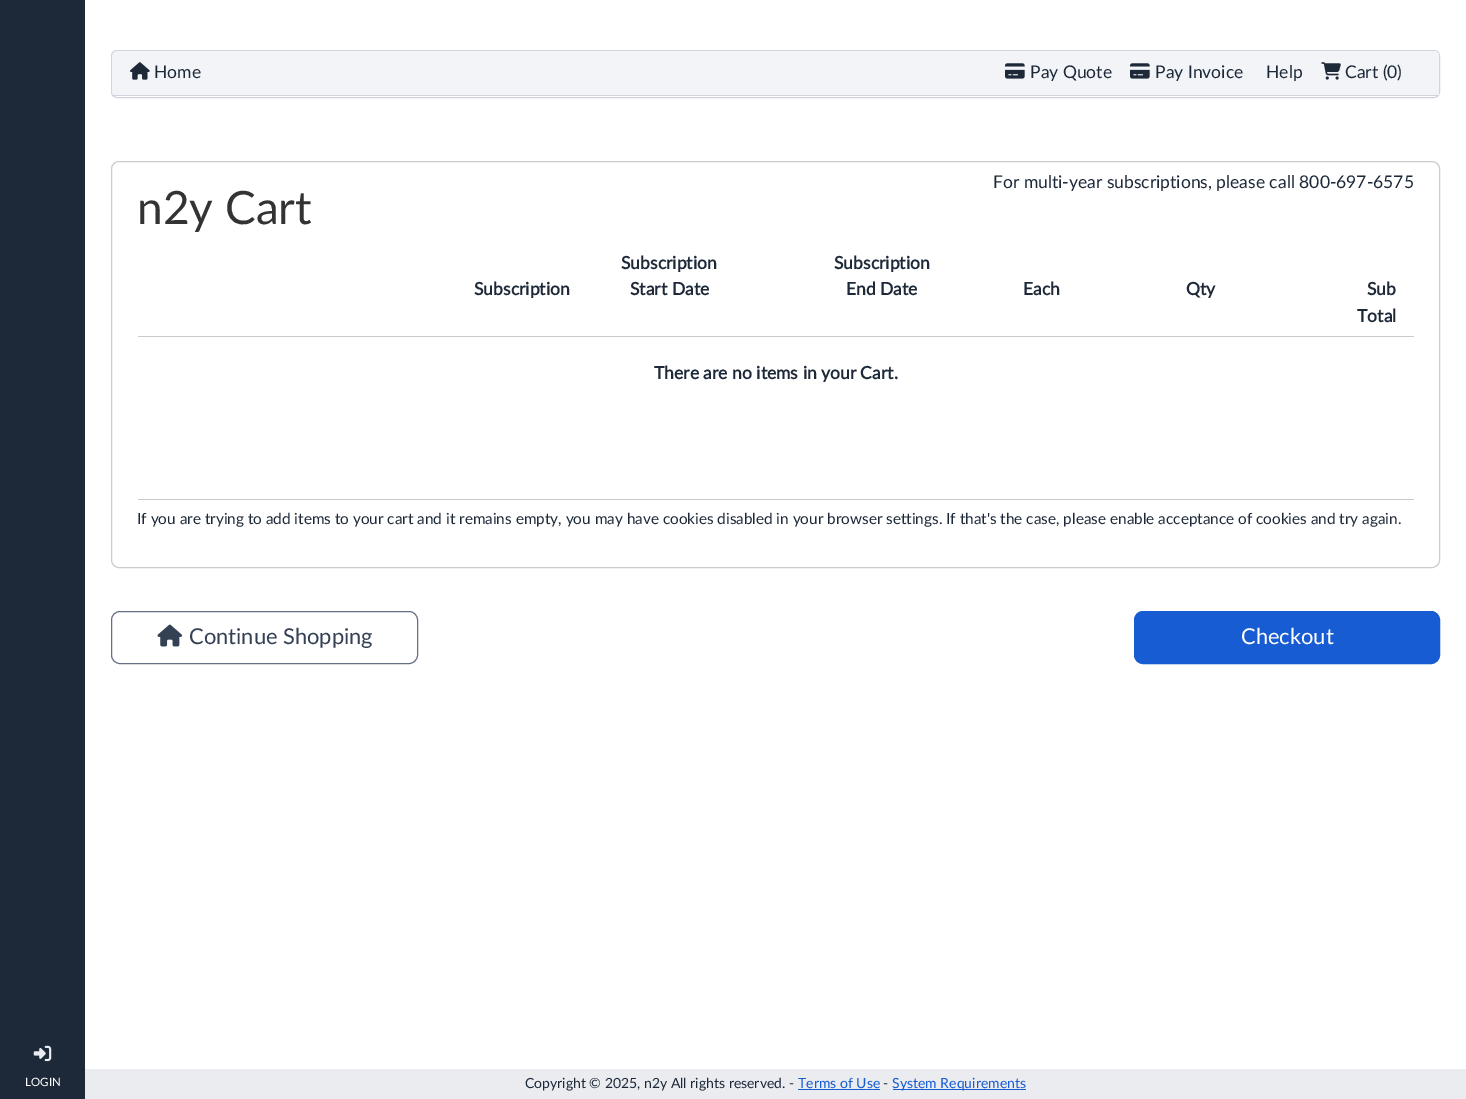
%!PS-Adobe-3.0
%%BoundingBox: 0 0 1466 1099
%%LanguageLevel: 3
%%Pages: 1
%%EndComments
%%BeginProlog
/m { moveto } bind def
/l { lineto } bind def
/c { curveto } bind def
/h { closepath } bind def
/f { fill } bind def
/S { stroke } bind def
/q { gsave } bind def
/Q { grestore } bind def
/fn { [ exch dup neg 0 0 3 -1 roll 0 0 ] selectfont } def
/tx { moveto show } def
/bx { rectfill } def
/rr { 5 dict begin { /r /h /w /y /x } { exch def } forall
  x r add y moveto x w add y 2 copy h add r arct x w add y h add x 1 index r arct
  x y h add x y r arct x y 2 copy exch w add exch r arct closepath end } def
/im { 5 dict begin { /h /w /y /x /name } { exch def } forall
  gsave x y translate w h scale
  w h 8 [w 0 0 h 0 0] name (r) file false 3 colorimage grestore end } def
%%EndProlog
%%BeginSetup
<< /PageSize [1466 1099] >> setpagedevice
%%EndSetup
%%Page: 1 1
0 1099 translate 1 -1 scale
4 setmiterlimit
1 setgray
0 0 1466 1099 bx
0.816 0.835 0.867 setrgbcolor
111.5 50.5 1328 47 5.5 rr S
0.949 0.957 0.969 setrgbcolor
118 51 m 1434 51 l 1437 51 1439 53 1439 56 c 1439 96 l 113 96 l 113 56 l 113 53 115 51 118 51 c h f
0.816 0.835 0.867 setrgbcolor
113 95 1326 1 bx
(image0.raw) 130 62 20 18 im
/Lato-Regular 17.5 fn
0.114 0.161 0.224 setrgbcolor
(Home) 154 78 tx
(image1.raw) 1005 63 20 16 im
(Pay Quote) 1030 78 tx
(image1.raw) 1130 63 20 16 im
(Pay Invoice) 1155 78 tx
(Help) 1266 78 tx
(image2.raw) 1321 62 20 18 im
(Cart \(0\)) 1345 78 tx
0.8 setgray
111.5 161.5 1328 406 7.5 rr S
0.114 0.161 0.224 setrgbcolor
(For multi-year subscriptions, please call 800-697-6575) 993 188 tx
/Lato-Regular 46 fn
0.2 setgray
(n2y Cart) 137 224 tx
/Lato-Bold 17.5 fn
0.114 0.161 0.224 setrgbcolor
(Subscription) 474 295 tx
(Subscription) 621 269 tx
(Start Date) 630 295 tx
(Subscription) 834 269 tx
(End Date) 846 295 tx
(Each) 1023 295 tx
(Qty) 1186 295 tx
(Sub) 1367 295 tx
(Total) 1357 322 tx
0.78 0.792 0.808 setrgbcolor
138 336 1276 1 bx
0.114 0.161 0.224 setrgbcolor
(There are no items in your Cart.) 654 379 tx
0.78 0.792 0.808 setrgbcolor
138 499 1276 1 bx
/Lato-Regular 15.3 fn
0.114 0.161 0.224 setrgbcolor
(If you are trying to add items to your cart and it remains empty, you may have cookies disabled in your browser settings. If that's the case, please enable acceptance of cookies and try again.) 137 524 tx
0.4 0.439 0.522 setrgbcolor
111.5 611.5 306 52 8.5 rr S
(image3.raw) 157 624 26 23 im
/Lato-Regular 21.9 fn
0.204 0.251 0.329 setrgbcolor
(Continue Shopping) 189 644 tx
0.09 0.361 0.827 setrgbcolor
1134.5 611.5 305 52 8.5 rr q f Q
S
1 setgray
(Checkout) 1241 644 tx
0.114 0.161 0.224 setrgbcolor
0 0 85 1099 bx
(image4.raw) 33 1045 19 17 im
/Lato-Regular 11.5 fn
1 setgray
(LOGIN) 25 1086 tx
0.918 0.925 0.941 setrgbcolor
85 1069 1381 30 bx
/Lato-Regular 14 fn
0.114 0.161 0.224 setrgbcolor
(Copyright © 2025, n2y All rights reserved. -) 525 1088 tx
0.09 0.361 0.827 setrgbcolor
(Terms of Use) 798 1088 tx
798 1089 82 1 bx
0.114 0.161 0.224 setrgbcolor
(-) 883 1088 tx
0.09 0.361 0.827 setrgbcolor
893 1089 133 1 bx
(System Requirements) 892 1088 tx
showpage
%%EOF
